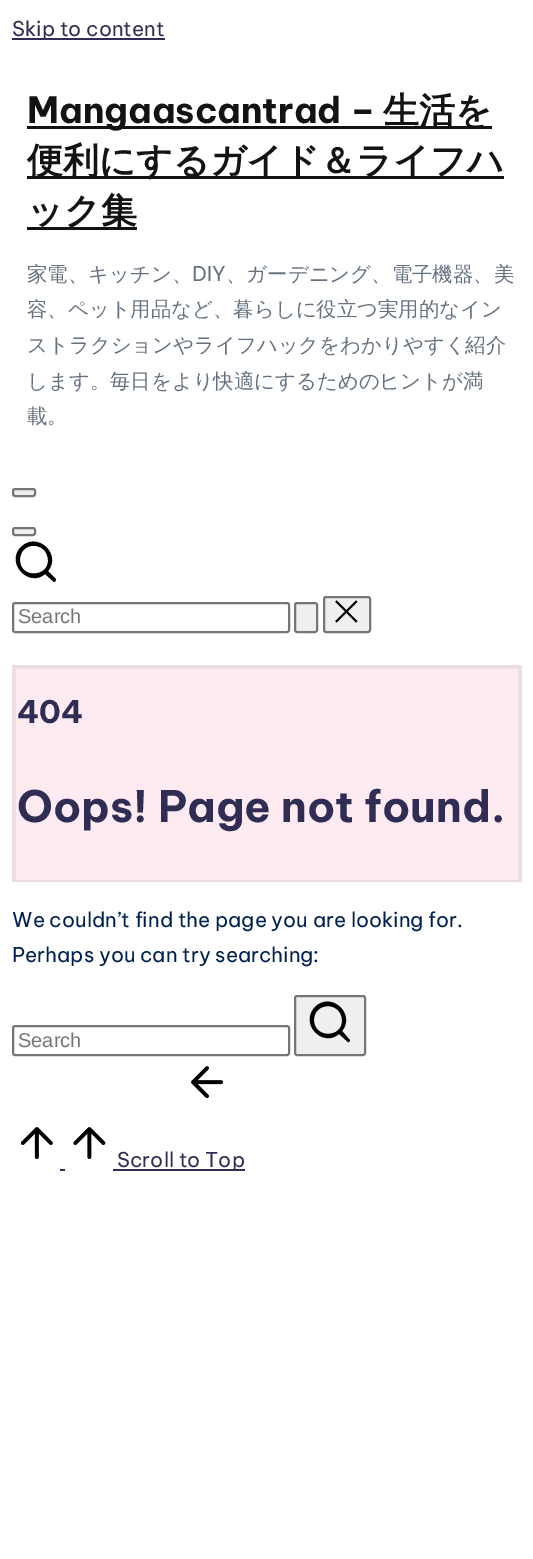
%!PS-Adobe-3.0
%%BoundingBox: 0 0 533 1559
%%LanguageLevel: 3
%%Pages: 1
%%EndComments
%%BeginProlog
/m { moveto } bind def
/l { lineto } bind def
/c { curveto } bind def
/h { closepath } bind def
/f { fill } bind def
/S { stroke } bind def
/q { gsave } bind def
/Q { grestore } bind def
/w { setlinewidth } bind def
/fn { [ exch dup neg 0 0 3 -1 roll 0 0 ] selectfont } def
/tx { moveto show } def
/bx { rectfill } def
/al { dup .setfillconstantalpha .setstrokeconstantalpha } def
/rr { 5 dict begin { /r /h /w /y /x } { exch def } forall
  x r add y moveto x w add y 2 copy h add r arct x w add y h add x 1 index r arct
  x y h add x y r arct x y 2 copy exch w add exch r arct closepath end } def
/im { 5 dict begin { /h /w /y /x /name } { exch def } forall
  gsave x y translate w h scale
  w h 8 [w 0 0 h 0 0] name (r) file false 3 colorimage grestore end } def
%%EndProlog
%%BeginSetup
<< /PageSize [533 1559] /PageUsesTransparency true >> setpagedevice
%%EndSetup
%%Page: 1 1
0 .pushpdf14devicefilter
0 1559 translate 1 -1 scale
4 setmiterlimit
1 setgray
0 0 533 1559 bx
0.188 0.176 0.333 setrgbcolor
12 38 153 2 bx
/BeVietnamPro-Regular 20.4 fn
(Skip to content) 12 36 tx
0.996 0.922 0.949 setrgbcolor
12 665 510 217 bx
0.06 al
0 setgray
12 664 m 522 664 l 518 669 l 16 669 l h f
522 664 m 522 882 l 518 880 l 518 669 l h f
522 882 m 12 882 l 16 880 l 518 880 l h f
12 882 m 12 664 l 16 669 l 16 880 l h f
1 al
1 setgray
12 664 510 1 bx
0.075 0.075 0.082 setrgbcolor
27 126 465 3 bx
/BeVietnamPro-Bold 36 fn
(Mangaascantrad –) 27 123 tx
/WenQuanYiZenHei-Bold 36 fn
(生活を) 383 123 tx
27 176 477 3 bx
(便利にするガイド＆ライフハ) 27 173 tx
27 227 110 3 bx
(ック集) 27 223 tx
/WenQuanYiZenHei-Medium 20.4 fn
0.4 0.443 0.498 setrgbcolor
(家電、キッチン、) 27 281 tx
/BeVietnamPro-Regular 20.4 fn
(DIY) 192 281 tx
/WenQuanYiZenHei-Medium 20.4 fn
(、ガーデニング、電子機器、美) 226 281 tx
(容、ペット用品など、暮らしに役立つ実用的なイン) 27 316 tx
(ストラクションやライフハックをわかりやすく紹介) 27 352 tx
(します。毎日をより快適にするためのヒントが満) 27 388 tx
(載。) 27 423 tx
0.937 setgray
13 489 22 7 2 rr q f Q
0.463 setgray
2 w
S
0.937 setgray
13 528 22 7 2 rr q f Q
0.463 setgray
S
0 setgray
55 578 m 48 571 l 62 554 37 531 21 547 c 5 563 29 588 45 574 c 54 582 l 55 582 57 580 55 578 c h 20 560 m 20 541 47 541 48 560 c 49 577 20 579 20 560 c h f
0.463 setgray
13 603 276 29 2 rr S
/LiberationSans-Regular 20 fn
0.459 setgray
(Search) 18 623 tx
0.937 setgray
295 603 22 29 2 rr q f Q
0.463 setgray
S
0.937 setgray
324 597 46 35 2 rr q f Q
0.463 setgray
S
(image0.raw) 335 600 23 23 im
/BeVietnamPro-Bold 31 fn
0.188 0.176 0.333 setrgbcolor
(404) 17 723 tx
/BeVietnamPro-Bold 43.25 fn
(Oops! Page not found.) 17 822 tx
/BeVietnamPro-Regular 20.4 fn
0 0.125 0.314 setrgbcolor
(We couldn’t find the page you are looking for.) 12 927 tx
(Perhaps you can try searching:) 12 962 tx
0.463 setgray
13 1026 276 29 2 rr S
/LiberationSans-Regular 20 fn
0.459 setgray
(Search) 18 1047 tx
0.937 setgray
295 996 70 59 2 rr q f Q
0.463 setgray
S
0 setgray
349 1039 m 342 1031 l 356 1014 331 991 315 1007 c 299 1024 323 1048 339 1034 c 348 1042 l 349 1043 351 1040 349 1039 c h 314 1020 m 314 1002 341 1001 342 1020 c 343 1038 314 1039 314 1020 c h f
(image1.raw) 191 1066 32 33 im
(image2.raw) 20 1127 33 32 im
(image3.raw) 73 1127 33 32 im
0.188 0.176 0.333 setrgbcolor
113 1169 132 2 bx
/BeVietnamPro-Regular 20.4 fn
(Scroll to Top) 117 1167 tx
60 1169 5 2 bx
.poppdf14devicefilter showpage
%%EOF
